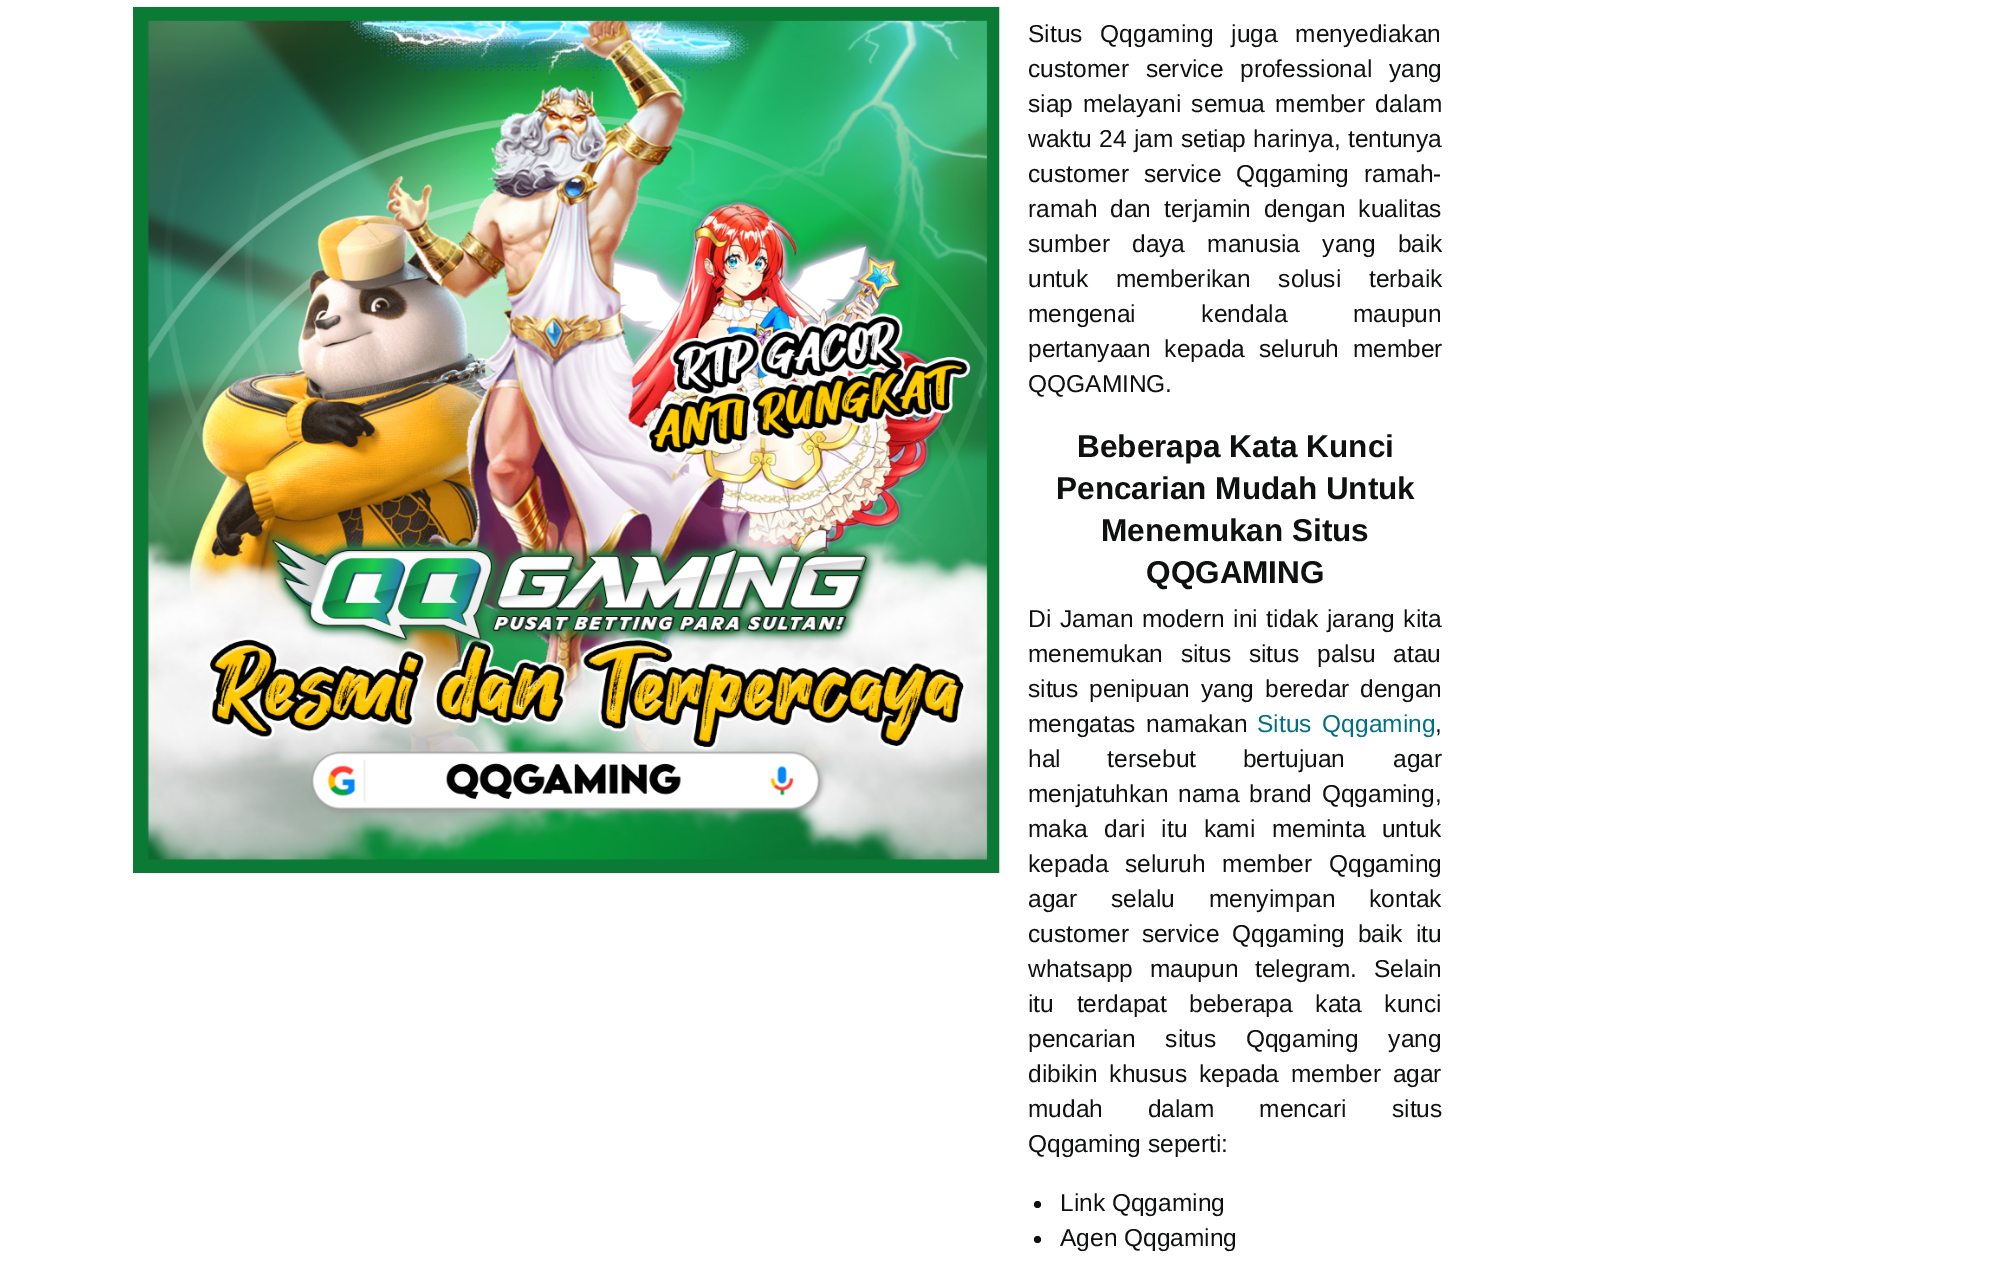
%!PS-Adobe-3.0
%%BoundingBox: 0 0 1997 1270
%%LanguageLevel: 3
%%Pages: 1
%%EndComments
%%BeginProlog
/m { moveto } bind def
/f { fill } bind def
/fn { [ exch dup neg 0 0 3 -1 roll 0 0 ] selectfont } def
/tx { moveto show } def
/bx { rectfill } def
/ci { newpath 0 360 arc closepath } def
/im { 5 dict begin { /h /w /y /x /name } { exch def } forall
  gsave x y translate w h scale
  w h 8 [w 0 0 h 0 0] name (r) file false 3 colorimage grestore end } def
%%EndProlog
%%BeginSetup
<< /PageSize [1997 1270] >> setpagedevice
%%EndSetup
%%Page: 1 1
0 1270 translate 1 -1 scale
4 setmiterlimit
1 setgray
0 0 1997 1270 bx
(image0.raw) 133 7 867 866 im
/LiberationSans-Regular 24.5 fn
0.059 0.067 0.067 setrgbcolor
1028 42 m 11 0 32 (Situs Qqgaming juga menyediakan) widthshow
1028 77 m 10 0 32 (customer service professional yang) widthshow
(siap) 1028 112 tx
1083 112 m 3.5 0 32 (melayani semua member dalam) widthshow
1028 147 m 0.5 0 32 (waktu 24 jam setiap harinya, tentunya) widthshow
1028 182 m 8 0 32 (customer service Qqgaming ramah-) widthshow
1028 217 m 6 0 32 (ramah dan terjamin dengan kualitas) widthshow
1028 252 m 15.5 0 32 (sumber daya manusia yang baik) widthshow
1028 287 m 21 0 32 (untuk memberikan solusi terbaik) widthshow
1028 322 m 59 0 32 (mengenai kendala maupun) widthshow
1028 357 m 7 0 32 (pertanyaan kepada seluruh member) widthshow
(QQGAMING.) 1028 392 tx
/LiberationSans-Bold 31.5 fn
(Beberapa Kata Kunci) 1077 457 tx
(Pencarian Mudah Untuk) 1056 499 tx
(Menemukan Situs) 1101 541 tx
(QQGAMING) 1146 583 tx
/LiberationSans-Regular 24.5 fn
1028 627 m 1.75 0 32 (Di Jaman modern ini tidak jarang kita) widthshow
1028 662 m 11 0 32 (menemukan situs situs palsu atau) widthshow
1028 697 m 4 0 32 (situs penipuan yang) widthshow
1265 697 m 4 0 32 (beredar dengan) widthshow
1028 732 m 4 0 32 (mengatas namakan) widthshow
0 0.443 0.522 setrgbcolor
1257 732 m 4 0 32 (Situs Qqgaming) widthshow
0.059 0.067 0.067 setrgbcolor
(,) 1435 732 tx
1028 767 m 40 0 32 (hal tersebut bertujuan) widthshow
(agar) 1393 767 tx
1028 802 m 3 0 32 (menjatuhkan nama brand Qqgaming,) widthshow
1028 837 m 9.5 0 32 (maka dari itu kami meminta untuk) widthshow
1028 872 m 10 0 32 (kepada seluruh member Qqgaming) widthshow
(agar) 1028 907 tx
1111 907 m 27 0 32 (selalu menyimpan kontak) widthshow
1028 942 m 6 0 32 (customer service Qqgaming baik itu) widthshow
1028 977 m 10 0 32 (whatsapp maupun telegram. Selain) widthshow
1028 1012 m 16 0 32 (itu terdapat) widthshow
1189 1012 m 16 0 32 (beberapa kata kunci) widthshow
1028 1047 m 23 0 32 (pencarian situs Qqgaming yang) widthshow
1028 1082 m 5 0 32 (dibikin khusus kepada member agar) widthshow
1028 1117 m 38 0 32 (mudah dalam mencari) widthshow
(situs) 1392 1117 tx
(Qqgaming seperti:) 1028 1152 tx
1037.5 1204.5 3.5 ci f
(Link Qqgaming) 1060 1211 tx
1037.5 1239.5 3.5 ci f
(Agen Qqgaming) 1060 1246 tx
showpage
%%EOF
